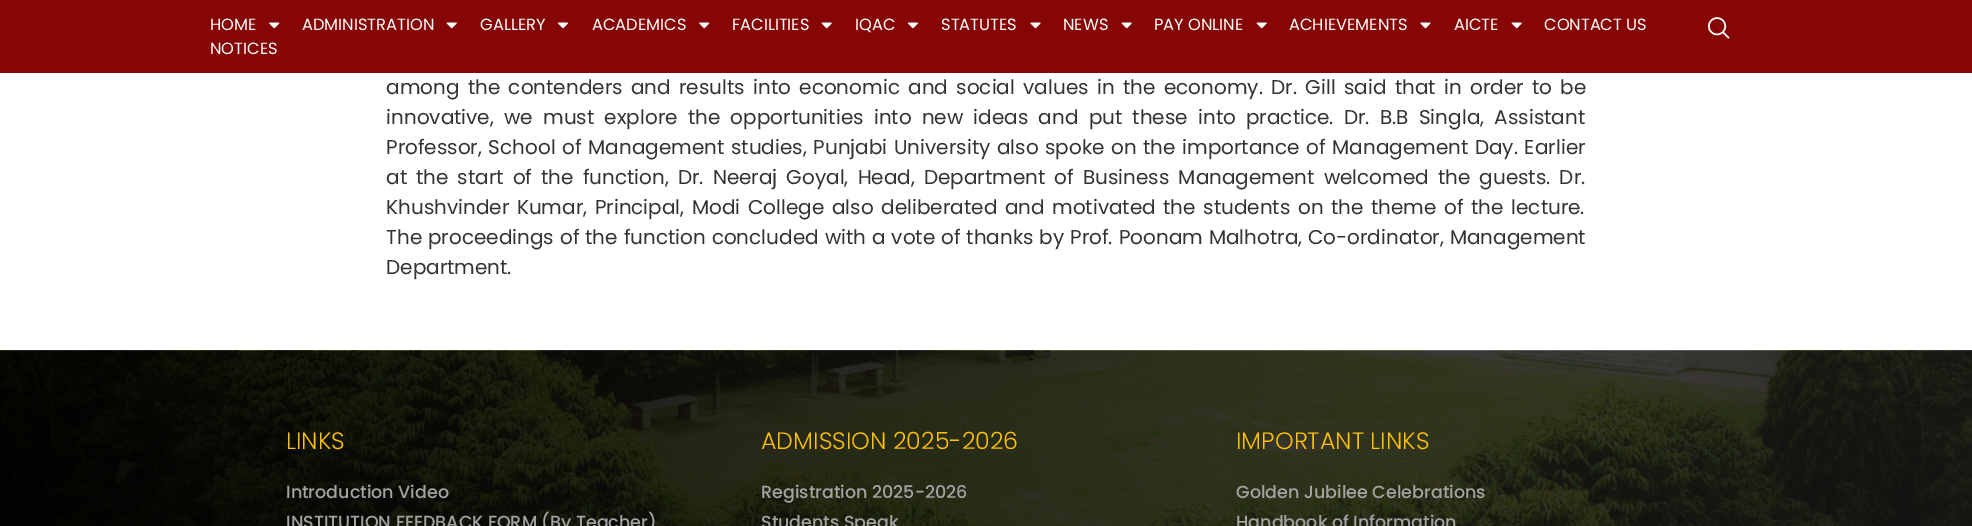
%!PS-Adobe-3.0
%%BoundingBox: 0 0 1972 526
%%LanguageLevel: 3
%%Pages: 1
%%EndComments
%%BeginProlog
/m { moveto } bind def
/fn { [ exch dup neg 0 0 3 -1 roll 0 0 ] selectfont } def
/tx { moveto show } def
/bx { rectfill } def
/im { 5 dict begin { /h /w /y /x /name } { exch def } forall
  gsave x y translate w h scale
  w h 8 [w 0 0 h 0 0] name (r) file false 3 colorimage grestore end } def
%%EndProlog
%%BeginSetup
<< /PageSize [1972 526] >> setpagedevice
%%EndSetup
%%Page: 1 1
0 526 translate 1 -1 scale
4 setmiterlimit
1 setgray
0 0 1972 526 bx
0.525 0.024 0.024 setrgbcolor
0 0 1972 73 bx
/Poppins-Regular 16.25 fn
1 setgray
(HOME) 210 30 tx
(image0.raw) 269 22 11 7 im
(ADMINISTRATION) 302 30 tx
(image1.raw) 446 22 11 7 im
(GALLERY) 480 30 tx
(image2.raw) 557 22 11 7 im
(ACADEMICS) 592 30 tx
(image0.raw) 699 22 11 7 im
(FACILITIES) 732 30 tx
(image1.raw) 821 22 11 7 im
(IQAC) 855 30 tx
(image2.raw) 907 22 11 7 im
(STATUTES) 941 30 tx
(image3.raw) 1030 22 11 7 im
(NEWS) 1063 30 tx
(image1.raw) 1121 22 11 7 im
(PAY ONLINE) 1154 30 tx
(image1.raw) 1256 22 11 7 im
(ACHIEVEMENTS) 1289 30 tx
(image3.raw) 1420 22 11 7 im
(AICTE) 1454 30 tx
(image1.raw) 1511 22 11 7 im
(CONTACT US) 1544 30 tx
(NOTICES) 210 54 tx
(image4.raw) 1708 17 22 22 im
/Poppins-Regular 20 fn
0.2 setgray
386 94 m 3 0 32 (among the contenders and results into economic and social values in the economy. Dr. Gill said that in order to be) widthshow
386 124 m 4.9 0 32 (innovative, we must explore the opportunities into new ideas and put these into practice. Dr. B.B Singla, Assistant) widthshow
386 154 m 1.25 0 32 (Professor, School of Management studies, Punjabi University also spoke on the importance of Management Day. Earlier) widthshow
386 184 m 3.75 0 32 (at the start of the function, Dr. Neeraj Goyal, Head, Department of Business Management welcomed the guests. Dr.) widthshow
386 214 m 2.25 0 32 (Khushvinder Kumar, Principal, Modi College also deliberated and motivated the students on the theme of the lecture.) widthshow
386 244 m 0.6 0 32 (The proceedings of the function concluded with a vote of thanks by Prof. Poonam Malhotra, Co-ordinator, Management) widthshow
(Department.) 386 274 tx
(image5.raw) 0 350 1972 176 im
/Poppins-Light 23.75 fn
1 0.757 0.027 setrgbcolor
(LINKS) 286 449 tx
/Poppins-Medium 17.5 fn
0.643 0.635 0.635 setrgbcolor
(Introduction Video) 286 498 tx
(INSTITUTION FEEDBACK FORM \(By Teacher\)) 286 528 tx
/Poppins-Light 23.75 fn
1 0.757 0.027 setrgbcolor
(ADMISSION 2025-2026) 761 449 tx
/Poppins-Medium 17.5 fn
0.643 0.635 0.635 setrgbcolor
(Registration 2025-2026) 761 498 tx
(Students Speak) 761 528 tx
/Poppins-Light 23.75 fn
1 0.757 0.027 setrgbcolor
(IMPORTANT LINKS) 1236 449 tx
/Poppins-Medium 17.5 fn
0.643 0.635 0.635 setrgbcolor
(Golden Jubilee Celebrations) 1236 498 tx
(Handbook of Information) 1236 528 tx
showpage
%%EOF
